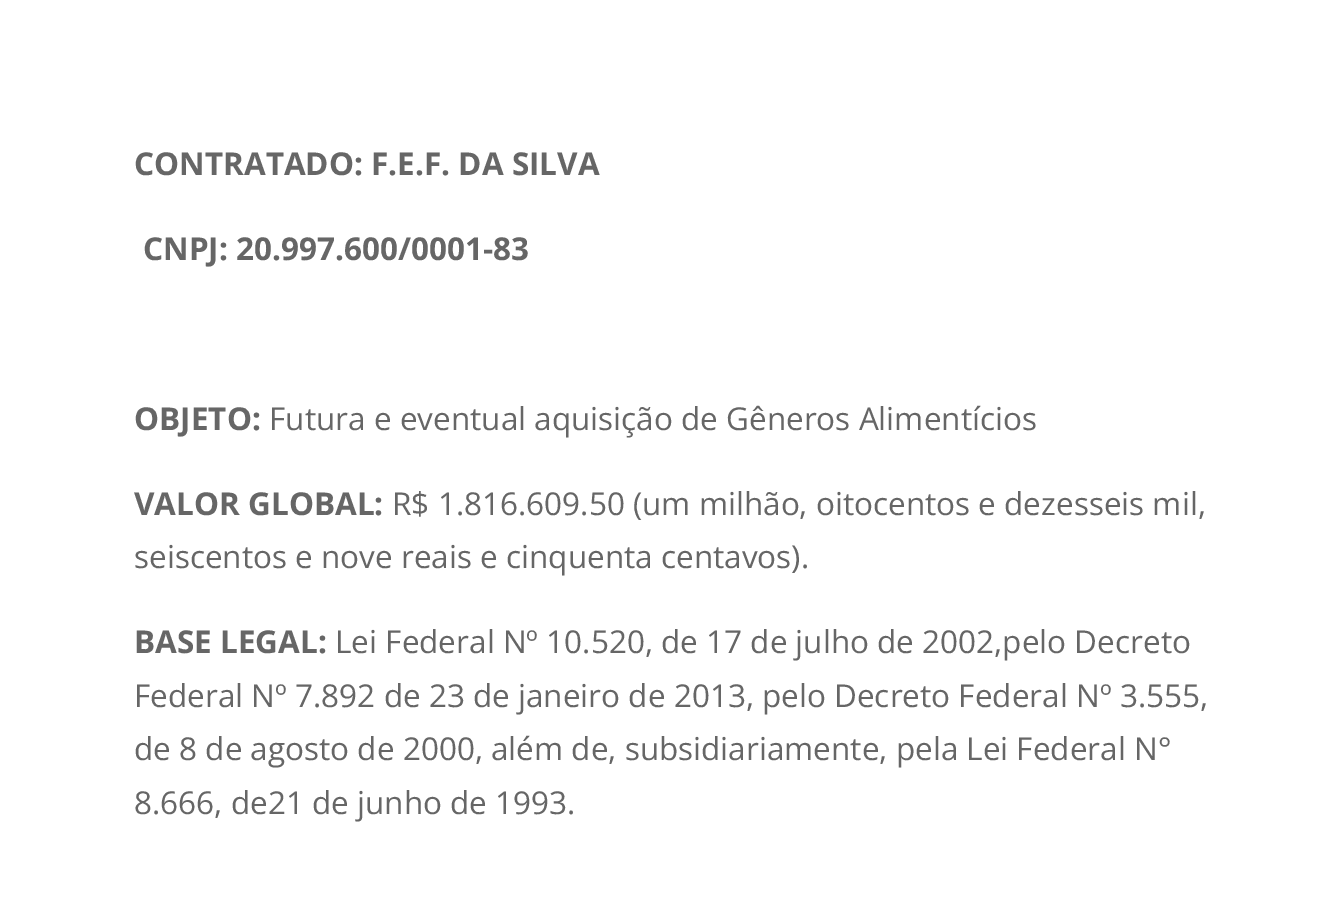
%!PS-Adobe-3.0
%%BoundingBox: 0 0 1342 919
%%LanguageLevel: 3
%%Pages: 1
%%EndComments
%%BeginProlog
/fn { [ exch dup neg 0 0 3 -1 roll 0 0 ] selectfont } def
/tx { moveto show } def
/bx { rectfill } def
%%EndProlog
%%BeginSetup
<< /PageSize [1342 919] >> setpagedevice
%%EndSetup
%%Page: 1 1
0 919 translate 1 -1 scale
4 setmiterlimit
1 setgray
0 0 1342 919 bx
/OpenSans-Bold 31.5 fn
0.4 setgray
(CONTRATADO: F.E.F. DA SILVA) 134 175 tx
(CNPJ: 20.997.600/0001-83) 143 260 tx
(OBJETO:) 134 430 tx
/OpenSans-Regular 31.5 fn
(Futura e eventual aquisição de Gêneros Alimentícios) 269 430 tx
/OpenSans-Bold 31.5 fn
(VALOR GLOBAL:) 134 515 tx
/OpenSans-Regular 31.5 fn
(R$ 1.816.609.50 \(um milhão, oitocentos e dezesseis mil,) 392 515 tx
(seiscentos e nove reais e cinquenta centavos\).) 134 568 tx
/OpenSans-Bold 31.5 fn
(BASE LEGAL:) 134 653 tx
/OpenSans-Regular 31.5 fn
(Lei Federal Nº 10.520, de 17 de julho de 2002,pelo Decreto) 335 653 tx
(Federal Nº 7.892 de 23 de janeiro de 2013, pelo Decreto Federal Nº 3.555,) 134 707 tx
(de 8 de agosto de 2000, além de, subsidiariamente, pela Lei Federal N°) 134 760 tx
(8.666, de21 de junho de 1993.) 134 814 tx
showpage
%%EOF
